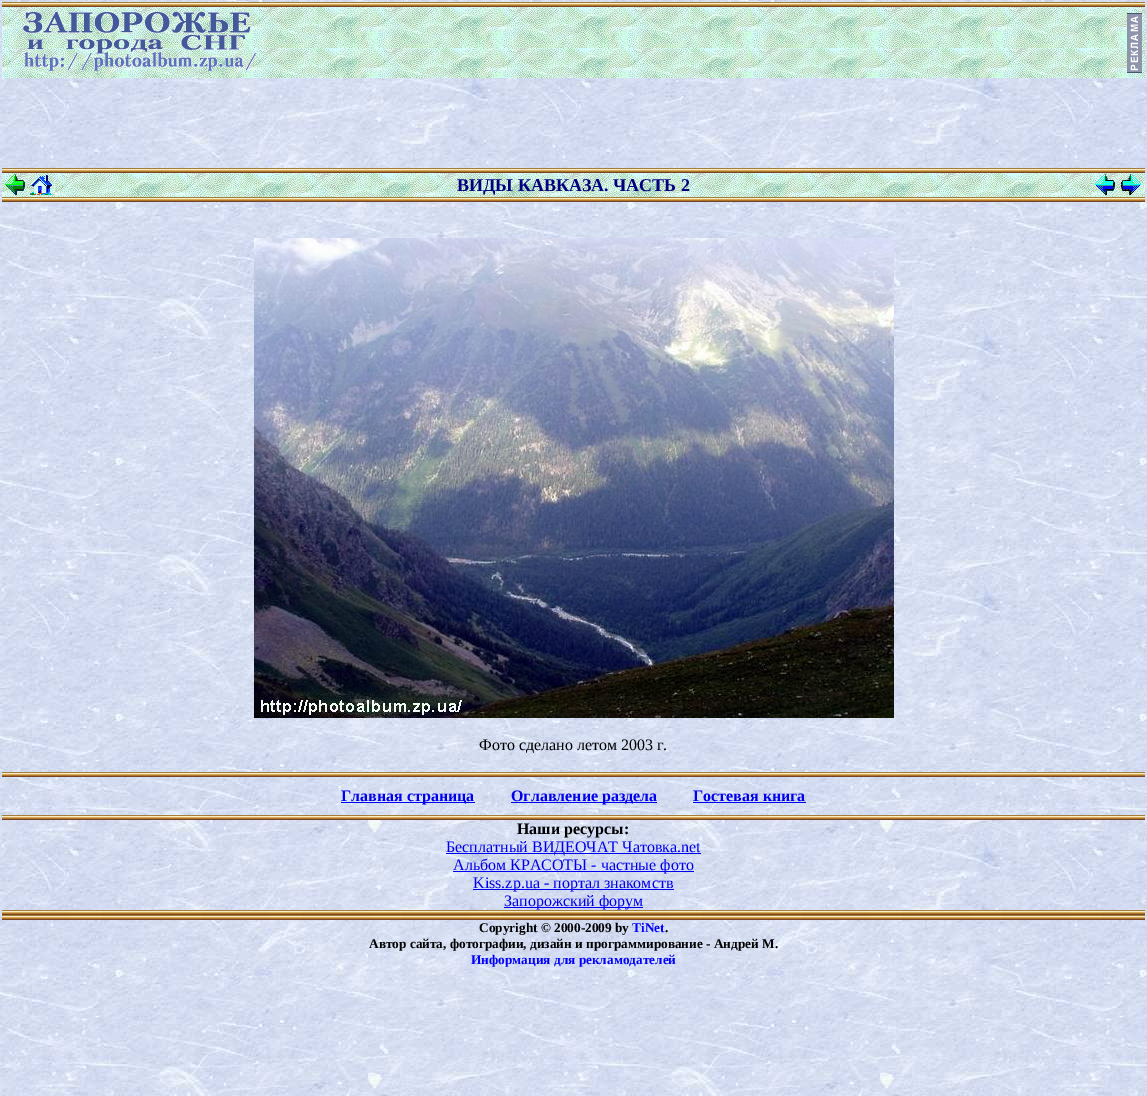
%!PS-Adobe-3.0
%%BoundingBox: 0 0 1147 1096
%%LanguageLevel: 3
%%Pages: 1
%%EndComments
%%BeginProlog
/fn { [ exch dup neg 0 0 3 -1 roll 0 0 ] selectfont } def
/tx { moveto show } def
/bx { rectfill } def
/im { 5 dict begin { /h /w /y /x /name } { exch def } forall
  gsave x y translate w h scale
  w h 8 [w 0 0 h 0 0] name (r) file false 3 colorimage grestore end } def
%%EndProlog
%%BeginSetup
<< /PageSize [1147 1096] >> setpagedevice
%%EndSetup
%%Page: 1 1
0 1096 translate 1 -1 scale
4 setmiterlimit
1 setgray
0 0 1147 1096 bx
(image0.raw) 0 0 1147 1096 im
(image1.raw) 2 2 1143 5 im
(image2.raw) 2 7 1143 71 im
(image3.raw) 23 12 233 59 im
(image4.raw) 1127 13 15 60 im
(image1.raw) 2 168 1143 5 im
(image5.raw) 2 173 53 24 im
(image6.raw) 5 174 20 21 im
(image7.raw) 30 175 22 20 im
(image8.raw) 55 173 1037 24 im
/LiberationSerif-Bold 18 fn
0 0 0.502 setrgbcolor
(ВИДЫ КАВКАЗА. ЧАСТЬ 2) 457 191 tx
(image5.raw) 1092 173 53 24 im
(image9.raw) 1095 174 20 21 im
(image10.raw) 1121 174 20 21 im
(image1.raw) 2 197 1143 5 im
(image11.raw) 254 238 640 480 im
/LiberationSerif-Regular 16 fn
0 setgray
(Фото сделано летом 2003 г.) 479 750 tx
(image1.raw) 2 772 1143 5 im
0 0 0.933 setrgbcolor
341 802 134 1 bx
/LiberationSerif-Bold 16 fn
(Главная страница) 341 801 tx
511 802 146 1 bx
(Оглавление раздела) 511 801 tx
(Гостевая книга) 693 801 tx
693 802 113 1 bx
(image1.raw) 2 815 1143 5 im
0 setgray
(Наши ресурсы:) 517 834 tx
0 0 0.933 setrgbcolor
446 853 255 1 bx
/LiberationSerif-Regular 16 fn
(Бесплатный ВИДЕОЧАТ Чатовка.net) 446 852 tx
453 871 241 1 bx
(Альбом КРАСОТЫ - частные фото) 453 870 tx
473 889 201 1 bx
(Kiss.zp.ua - портал знакомств) 473 888 tx
504 907 139 1 bx
(Запорожский форум) 504 906 tx
(image1.raw) 2 910 1143 5 im
(image1.raw) 2 915 1143 5 im
/LiberationSerif-Bold 13.3 fn
0 setgray
(Copyright © 2000-2009 by) 479 932 tx
0 0 1 setrgbcolor
(TiNet) 632 932 tx
0 setgray
(.) 665 932 tx
(Автор сайта, фотографии, дизайн и программирование - Андрей М.) 369 948 tx
0 0 1 setrgbcolor
(Информация для рекламодателей) 471 964 tx
showpage
%%EOF
